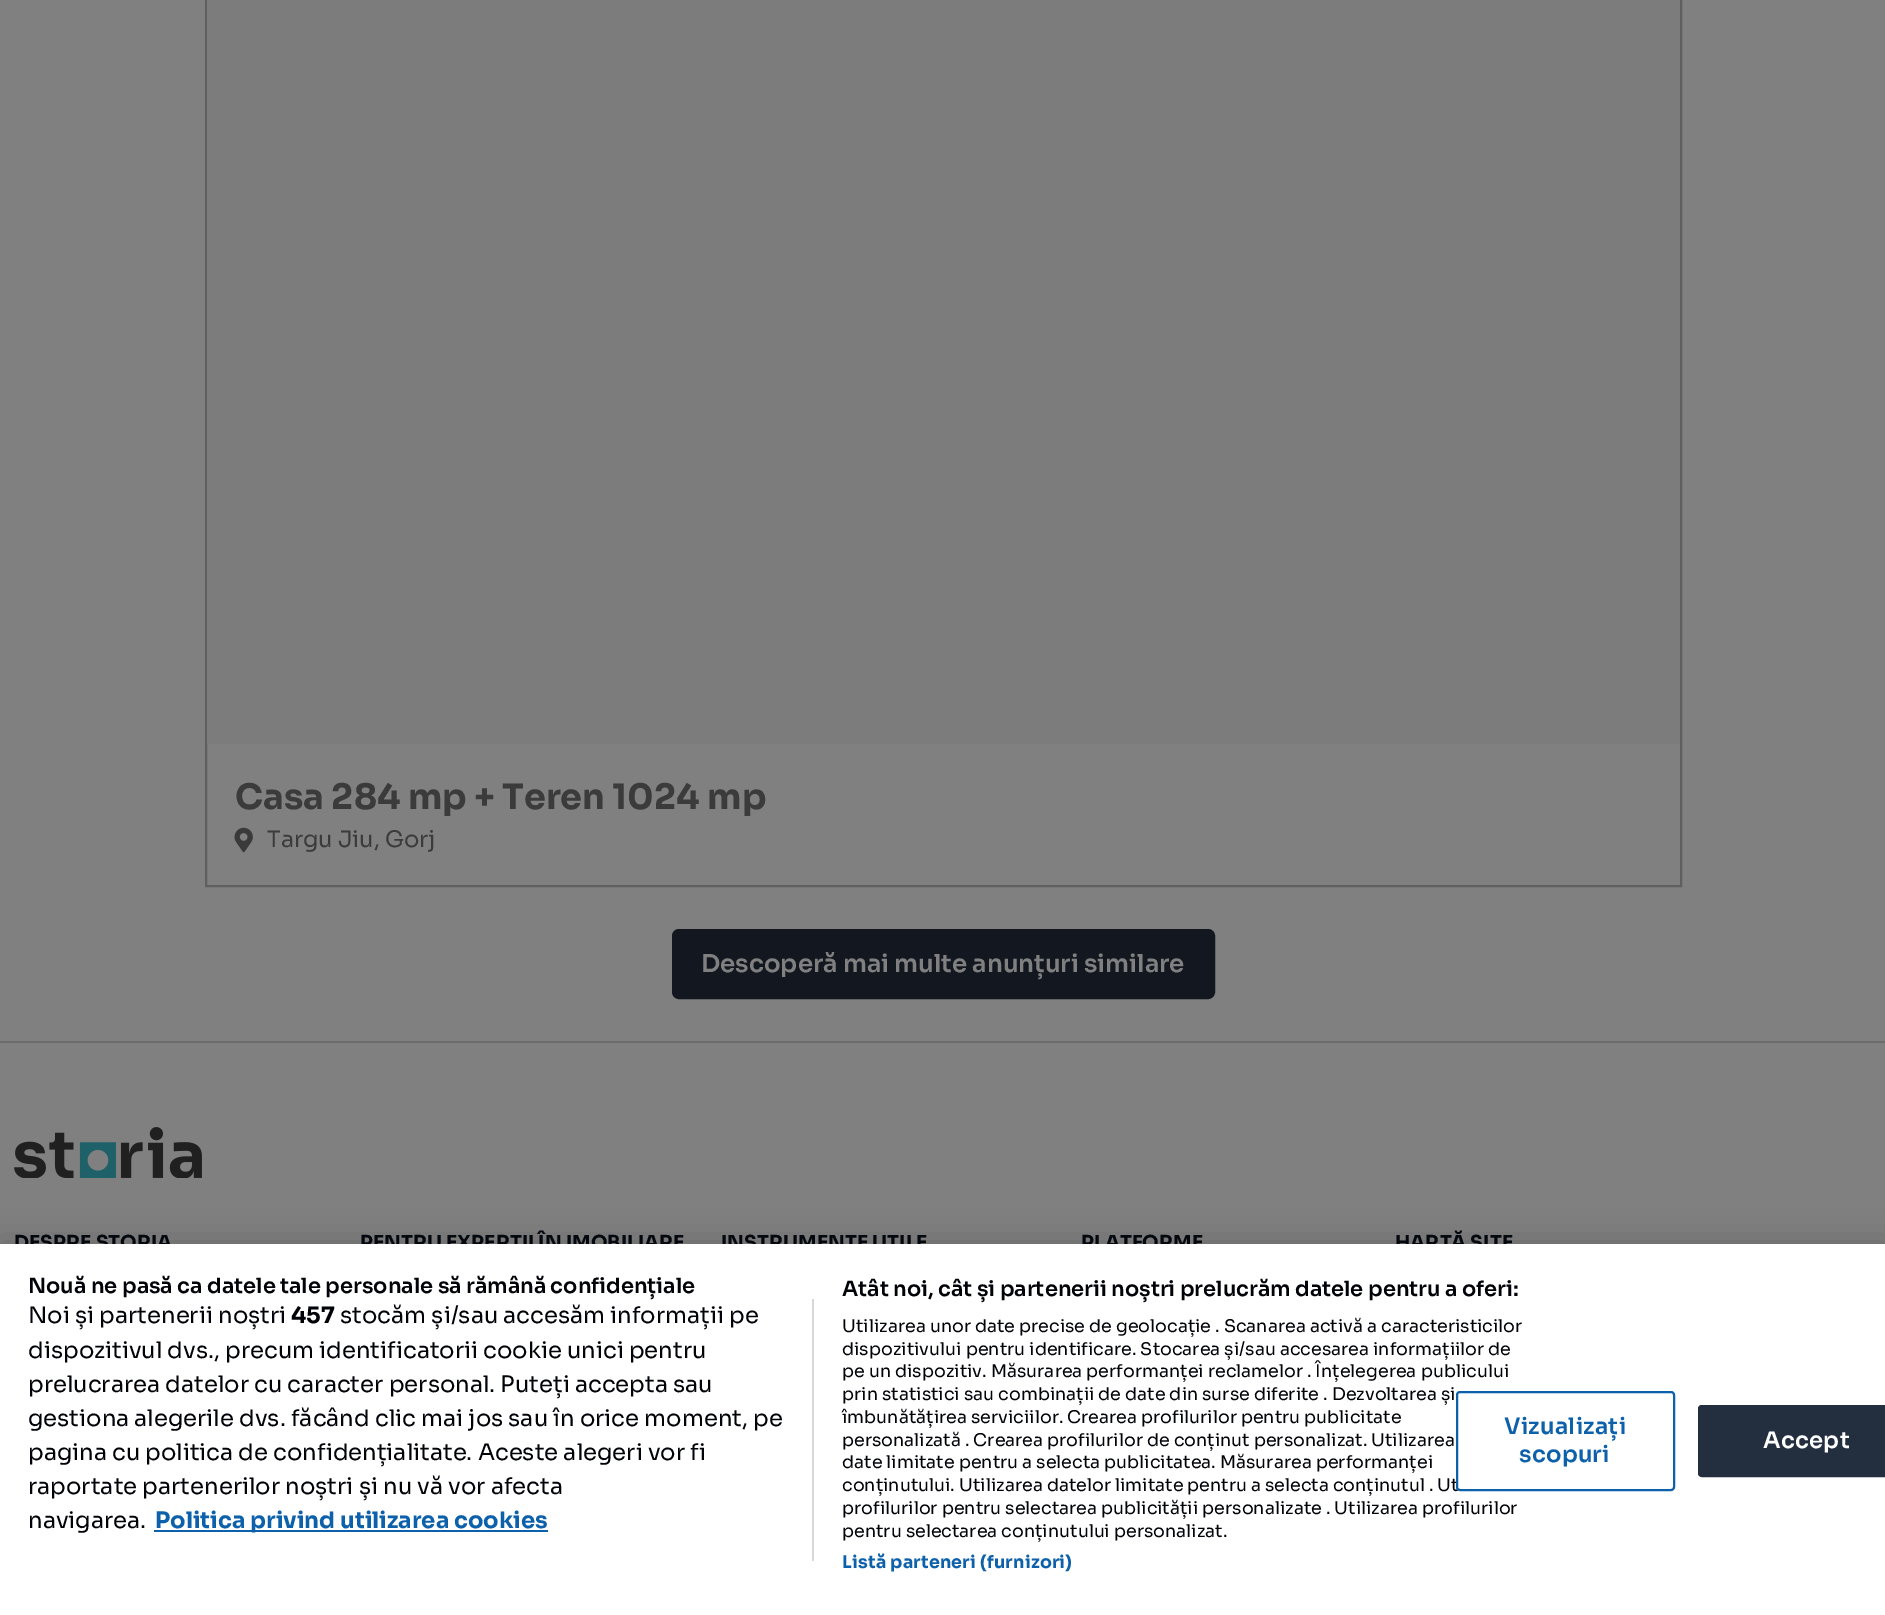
%!PS-Adobe-3.0
%%BoundingBox: 0 0 1885 1615
%%LanguageLevel: 3
%%Pages: 1
%%EndComments
%%BeginProlog
/m { moveto } bind def
/l { lineto } bind def
/c { curveto } bind def
/h { closepath } bind def
/f { fill } bind def
/S { stroke } bind def
/q { gsave } bind def
/Q { grestore } bind def
/w { setlinewidth } bind def
/fn { [ exch dup neg 0 0 3 -1 roll 0 0 ] selectfont } def
/tx { moveto show } def
/bx { rectfill } def
/al { dup .setfillconstantalpha .setstrokeconstantalpha } def
/rr { 5 dict begin { /r /h /w /y /x } { exch def } forall
  x r add y moveto x w add y 2 copy h add r arct x w add y h add x 1 index r arct
  x y h add x y r arct x y 2 copy exch w add exch r arct closepath end } def
/sh { 12 dict begin { /a /b /q /h /w /y /x } { exch def } forall gsave /was 0 def
  9 -2 -9 { dup b mul 4 div /e exch def 1 sub .425 mul 2.718 exch exp 1 add a .99 .min exch div /now exch def
    1 1 now sub 1 was sub div sub al /was now def
    w h .min e 2 mul add 0 gt { x e sub y e sub w e 2 mul add h e 2 mul add
      q e add b .6 mul add w h .min 2 div e add .min 0 .max rr fill } if } for grestore end } def
/im { 5 dict begin { /h /w /y /x /name } { exch def } forall
  gsave x y translate w h scale
  w h 8 [w 0 0 h 0 0] name (r) file false 3 colorimage grestore end } def
%%EndProlog
%%BeginSetup
<< /PageSize [1885 1615] /PageUsesTransparency true >> setpagedevice
%%EndSetup
%%Page: 1 1
0 .pushpdf14devicefilter
0 1615 translate 1 -1 scale
4 setmiterlimit
0.502 setgray
0 0 1885 1615 bx
0.373 setgray
2 w
206 -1 1475 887 rectstroke
0.486 setgray
207 0 1473 744 bx
/Sora-Bold 35 fn
0.231 setgray
(Casa 284 mp + Teren 1024 mp) 235 809 tx
(image0.raw) 234 827 19 26 im
/Sora-Regular 22.75 fn
(Targu Jiu, Gorj) 267 847 tx
0.071 0.09 0.125 setrgbcolor
673 930 541 68 6 rr q f Q
S
/Sora-SemiBold 24.5 fn
0.502 setgray
(Descoperă mai multe anunțuri similare) 701 972 tx
0.416 0.42 0.427 setrgbcolor
0 1041 1885 2 bx
(image1.raw) 14 1127 188 51 im
/Sora-Bold 19.25 fn
0.016 0.035 0.067 setrgbcolor
(DESPRE STORIA) 14 1249 tx
(PENTRU EXPERȚII ÎN IMOBILIARE) 360 1249 tx
(INSTRUMENTE UTILE) 721 1249 tx
(PLATFORME) 1081 1249 tx
(HARTĂ SITE) 1395 1249 tx
0 setgray
0 1244 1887 371 0 16 0.2 sh
1 setgray
0 1244 1885 371 bx
/Sora-SemiBold 21 fn
0.008 0.012 0.035 setrgbcolor
(Nouă ne pasă ca datele tale personale să rămână confidențiale) 28 1293 tx
(Atât noi, cât și partenerii noștri prelucrăm datele pentru a oferi:) 842 1296 tx
/Sora-Regular 17.5 fn
(Utilizarea unor date precise de geolocație . Scanarea activă a caracteristicilor) 842 1332 tx
(dispozitivului pentru identificare. Stocarea și/sau accesarea informațiilor de) 842 1355 tx
(pe un dispozitiv. Măsurarea performanței reclamelor . Înțelegerea publicului) 842 1377 tx
(prin statistici sau combinații de date din surse diferite . Dezvoltarea și) 842 1400 tx
(îmbunătățirea serviciilor. Crearea profilurilor pentru publicitate) 842 1423 tx
(personalizată . Crearea profilurilor de conținut personalizat. Utilizarea) 842 1446 tx
(date limitate pentru a selecta publicitatea. Măsurarea performanței) 842 1468 tx
(conținutului. Utilizarea datelor limitate pentru a selecta conținutul . Ut) 842 1491 tx
(profilurilor pentru selectarea publicității personalizate . Utilizarea profilurilor) 842 1514 tx
(pentru selectarea conținutului personalizat.) 842 1537 tx
/Sora-Bold 17.5 fn
0.051 0.38 0.671 setrgbcolor
842 1568 m 0.2 0 (Listă parteneri \(furnizori\)) ashow
0.847 setgray
812 1299 2 262 bx
/Sora-Regular 22.75 fn
0.008 0.012 0.035 setrgbcolor
(Noi și partenerii noștri) 28 1323 tx
/Sora-Bold 22.75 fn
(457) 291 1323 tx
/Sora-Regular 22.75 fn
(stocăm și/sau accesăm informații pe) 340 1323 tx
(dispozitivul dvs., precum identificatorii cookie unici pentru) 28 1358 tx
(prelucrarea datelor cu caracter personal. Puteți accepta sau) 28 1392 tx
(gestiona alegerile dvs. făcând clic mai jos sau în orice moment, pe) 28 1426 tx
(pagina cu politica de confidențialitate. Aceste alegeri vor fi) 28 1460 tx
(raportate partenerilor noștri și nu vă vor afecta) 28 1494 tx
(navigarea.) 28 1528 tx
0.051 0.38 0.671 setrgbcolor
154 1530 394 2 bx
/Sora-Bold 22.75 fn
(Politica privind utilizarea cookies) 155 1528 tx
1 setgray
1457 1392 217 98 3 rr q f Q
0.051 0.38 0.671 setrgbcolor
S
/Sora-SemiBold 22.75 fn
1504 1434 m 0.25 0 (Vizualizați) ashow
1519 1462 m 0.25 0 (scopuri) ashow
0.137 0.18 0.247 setrgbcolor
1702 1405 m 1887 1405 l 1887 1477 l 1702 1477 l 1700 1477 1698 1475 1698 1473 c 1698 1409 l 1698 1407 1700 1405 1702 1405 c h f
1699 1406 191 70 3 rr S
1 setgray
1763 1448 m 0.25 0 (Accept) ashow
.poppdf14devicefilter showpage
%%EOF
